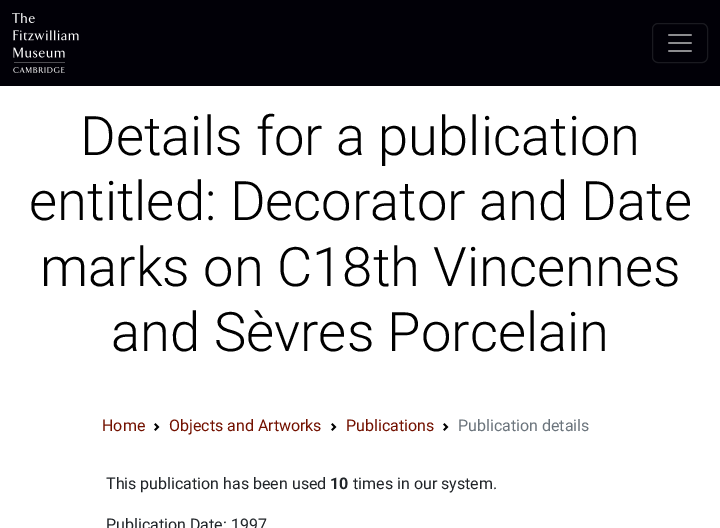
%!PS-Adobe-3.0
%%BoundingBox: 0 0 720 528
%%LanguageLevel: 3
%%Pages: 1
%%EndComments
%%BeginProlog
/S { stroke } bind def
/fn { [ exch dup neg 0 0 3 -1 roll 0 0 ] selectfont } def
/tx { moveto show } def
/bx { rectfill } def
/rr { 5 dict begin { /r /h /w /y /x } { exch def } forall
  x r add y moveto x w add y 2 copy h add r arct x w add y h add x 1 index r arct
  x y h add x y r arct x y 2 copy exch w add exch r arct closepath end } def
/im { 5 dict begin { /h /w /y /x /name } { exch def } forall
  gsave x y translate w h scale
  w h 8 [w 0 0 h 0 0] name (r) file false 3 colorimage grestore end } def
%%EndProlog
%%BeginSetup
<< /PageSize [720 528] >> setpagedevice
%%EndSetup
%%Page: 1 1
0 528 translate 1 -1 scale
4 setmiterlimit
1 setgray
0 0 720 528 bx
0.004 0 0.027 setrgbcolor
0 0 720 86 bx
(image0.raw) 12 13 67 60 im
0.102 0.102 0.125 setrgbcolor
652.5 23.5 55 39 5.5 rr S
(image1.raw) 668 34 24 18 im
/Roboto-Light 54.4 fn
0 setgray
(Details for a publication) 80 155 tx
(entitled: Decorator and Date) 29 220 tx
(marks on C18th Vincennes) 40 286 tx
(and Sèvres Porcelain) 111 351 tx
/Roboto-Regular 16 fn
0.451 0.067 0 setrgbcolor
(Home) 102 431 tx
(image2.raw) 154 423 6 8 im
(Objects and Artworks) 169 431 tx
(image2.raw) 331 423 6 8 im
(Publications) 346 431 tx
(image2.raw) 443 423 6 8 im
0.424 0.459 0.49 setrgbcolor
(Publication details) 458 431 tx
0.129 0.145 0.161 setrgbcolor
(This publication has been used) 106 489 tx
/Roboto-Bold 16 fn
(10) 330 489 tx
/Roboto-Regular 16 fn
(times in our system.) 353 489 tx
(Publication Date: 1997) 106 530 tx
showpage
%%EOF
